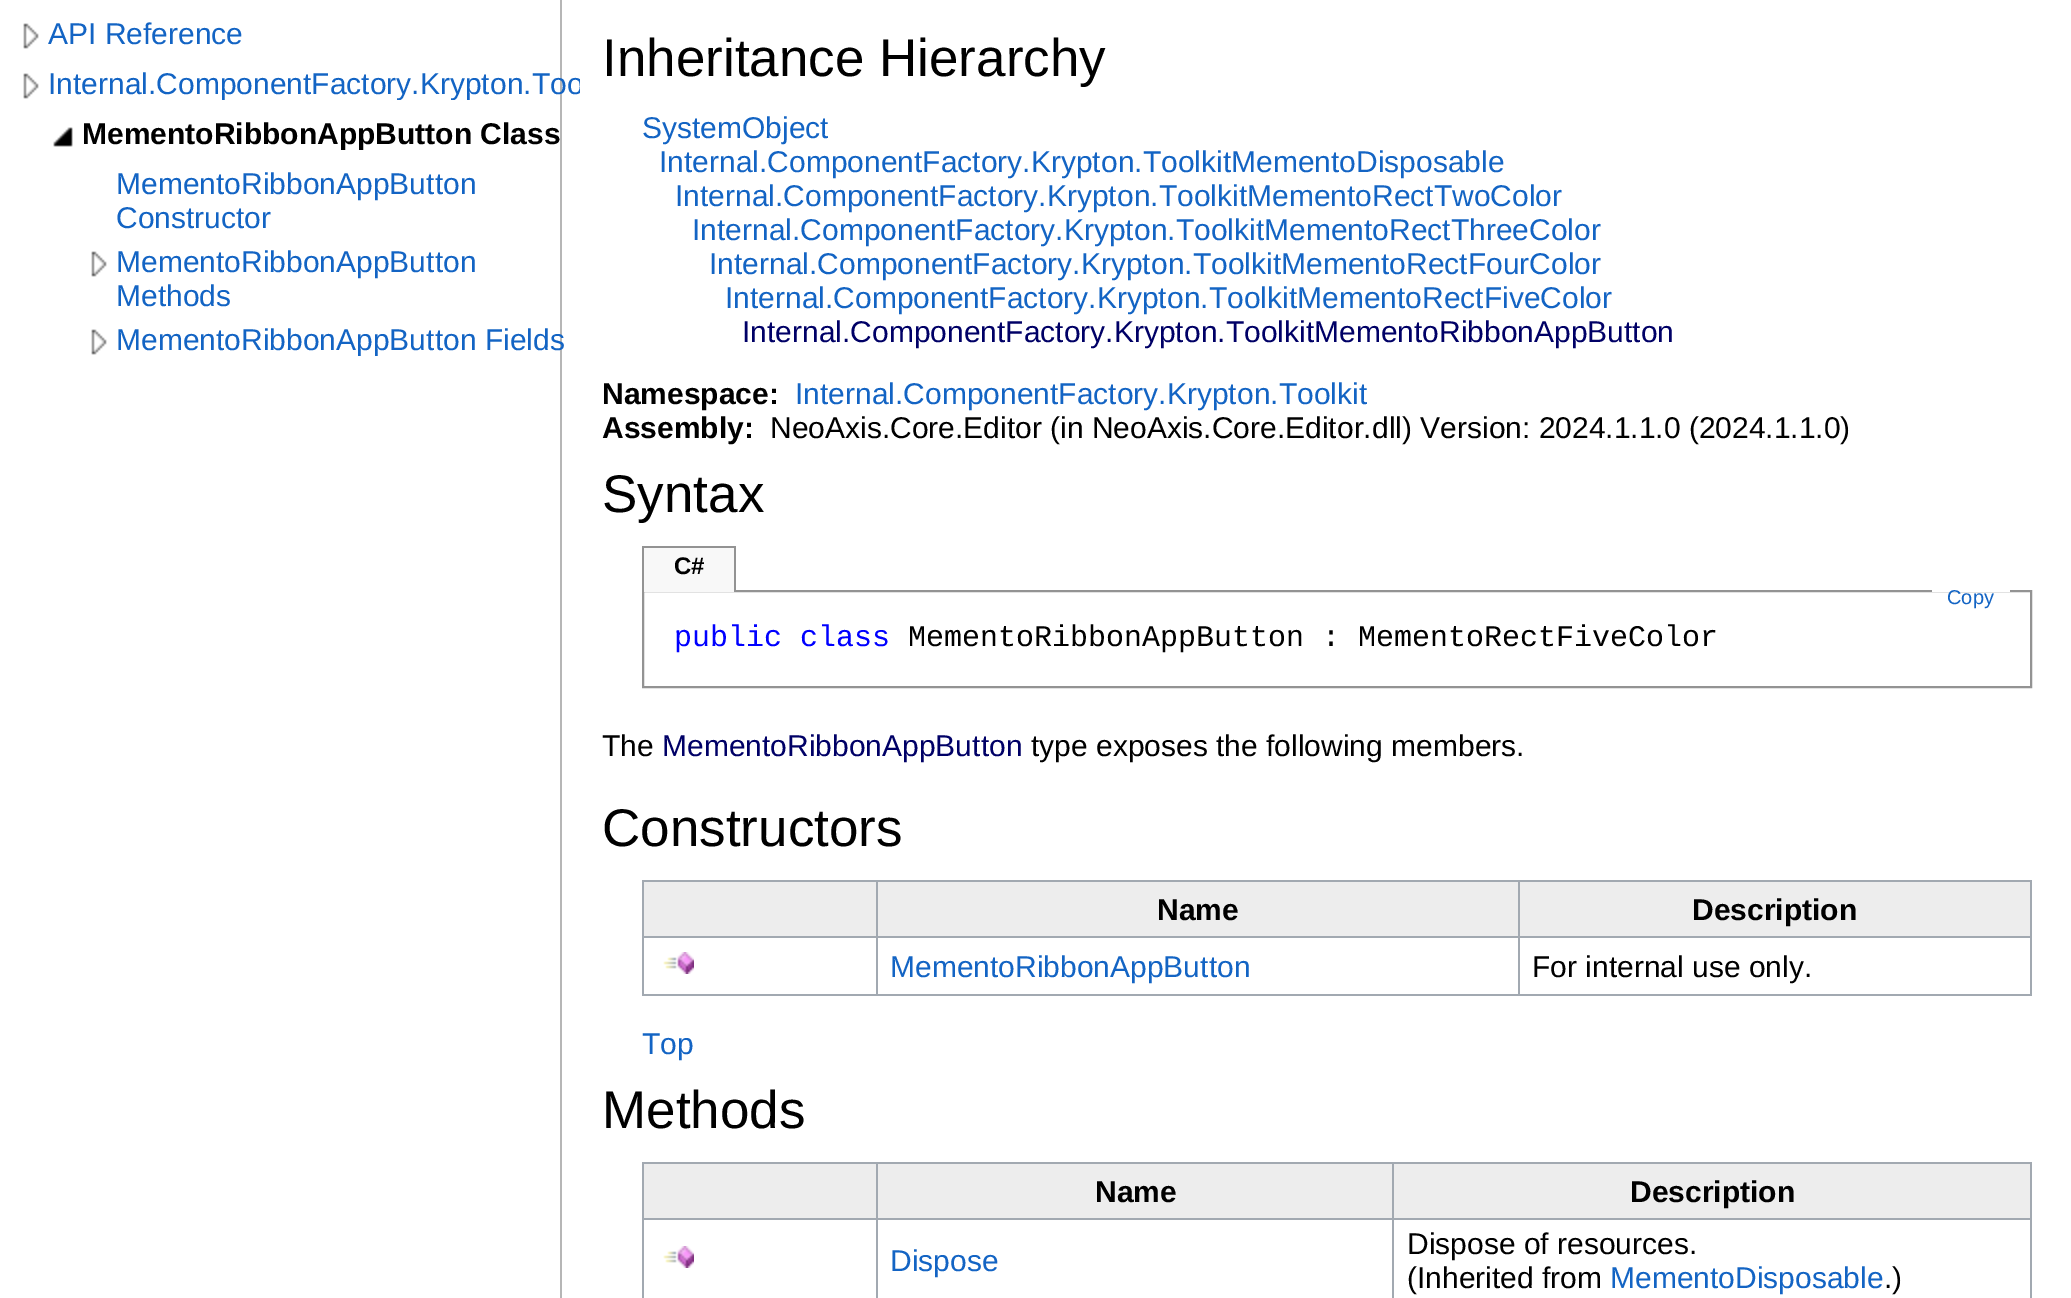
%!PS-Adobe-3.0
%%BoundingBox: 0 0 2071 1298
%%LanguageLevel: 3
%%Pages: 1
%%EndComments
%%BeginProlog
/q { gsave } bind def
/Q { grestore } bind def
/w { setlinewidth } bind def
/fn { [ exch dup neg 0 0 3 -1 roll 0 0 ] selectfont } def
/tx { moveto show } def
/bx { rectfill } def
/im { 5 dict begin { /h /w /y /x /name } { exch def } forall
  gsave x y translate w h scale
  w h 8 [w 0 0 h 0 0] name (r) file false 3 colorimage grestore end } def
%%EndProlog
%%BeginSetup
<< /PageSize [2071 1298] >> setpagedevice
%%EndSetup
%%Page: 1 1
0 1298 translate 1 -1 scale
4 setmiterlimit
1 setgray
0 0 2071 1298 bx
(image0.raw) 23 23 16 26 im
/LiberationSans-Regular 30 fn
0.075 0.392 0.769 setrgbcolor
(API Reference) 48 44 tx
(image0.raw) 23 73 16 26 im
0.714 setgray
560 0 2 1298 bx
q
48 66 532 34 rectclip
0.075 0.392 0.769 setrgbcolor
(Internal.ComponentFactory.Krypton.Too) 48 94 tx
Q
(image1.raw) 53 127 20 20 im
q
82 116 498 34 rectclip
/LiberationSans-Bold 30 fn
0 setgray
(MementoRibbonAppButton Class) 82 144 tx
Q
0.075 0.392 0.769 setrgbcolor
(MementoRibbonAppButton) 116 194 tx
(Constructor) 116 228 tx
(image0.raw) 91 251 16 26 im
(MementoRibbonAppButton) 116 272 tx
(Methods) 116 306 tx
(image0.raw) 91 329 16 26 im
q
116 322 464 34 rectclip
(MementoRibbonAppButton Fields) 116 350 tx
Q
/LiberationSans-Regular 53 fn
0 setgray
(Inheritance Hierarchy) 602 76 tx
/LiberationSans-Regular 30 fn
0.075 0.392 0.769 setrgbcolor
(SystemObject) 642 138 tx
(Internal.ComponentFactory.Krypton.ToolkitMementoDisposable) 659 172 tx
(Internal.ComponentFactory.Krypton.ToolkitMementoRectTwoColor) 675 206 tx
(Internal.ComponentFactory.Krypton.ToolkitMementoRectThreeColor) 692 240 tx
(Internal.ComponentFactory.Krypton.ToolkitMementoRectFourColor) 709 274 tx
(Internal.ComponentFactory.Krypton.ToolkitMementoRectFiveColor) 725 308 tx
0 0 0.4 setrgbcolor
(Internal.ComponentFactory.Krypton.ToolkitMementoRibbonAppButton) 742 342 tx
/LiberationSans-Bold 30 fn
0 setgray
(Namespace:) 602 404 tx
/LiberationSans-Regular 30 fn
0.075 0.392 0.769 setrgbcolor
(Internal.ComponentFactory.Krypton.Toolkit) 795 404 tx
/LiberationSans-Bold 30 fn
0 setgray
(Assembly:) 602 438 tx
/LiberationSans-Regular 30 fn
(NeoAxis.Core.Editor \(in NeoAxis.Core.Editor.dll\) Version: 2024.1.1.0 \(2024.1.1.0\)) 770 438 tx
/LiberationSans-Regular 53 fn
(Syntax) 602 512 tx
0.576 setgray
2 w
643 591 1388 96 rectstroke
0.973 setgray
644 548 90 44 bx
0.576 setgray
642 546 94 2 bx
734 546 2 46 bx
642 546 2 46 bx
/LiberationSans-Bold 24 fn
0 setgray
(C#) 674 574 tx
1 setgray
1932 590 78 2 bx
/LiberationSans-Regular 20 fn
0.075 0.392 0.769 setrgbcolor
(Copy) 1947 604 tx
/LiberationMono-Regular 30 fn
0 0 1 setrgbcolor
(public class) 674 646 tx
0 setgray
(MementoRibbonAppButton : MementoRectFiveColor) 908 646 tx
/LiberationSans-Regular 30 fn
(The) 602 756 tx
0 0 0.4 setrgbcolor
(MementoRibbonAppButton) 662 756 tx
0 setgray
(type exposes the following members.) 1031 756 tx
/LiberationSans-Regular 53 fn
(Constructors) 602 846 tx
0.635 0.663 0.694 setrgbcolor
642 880 1390 2 bx
2030 880 2 116 bx
642 994 1390 2 bx
642 880 2 116 bx
0.929 setgray
644 882 232 54 bx
878 882 640 54 bx
0.635 0.663 0.694 setrgbcolor
1518 936 514 2 bx
1518 936 2 60 bx
876 936 644 2 bx
876 936 2 60 bx
642 936 236 2 bx
876 880 2 58 bx
/LiberationSans-Bold 30 fn
0 setgray
(Name) 1157 920 tx
0.929 setgray
1520 882 510 54 bx
0.635 0.663 0.694 setrgbcolor
1518 880 2 58 bx
0 setgray
(Description) 1692 920 tx
(image2.raw) 663 952 31 22 im
/LiberationSans-Regular 30 fn
0.075 0.392 0.769 setrgbcolor
(MementoRibbonAppButton) 890 977 tx
0 setgray
(For internal use only.) 1532 977 tx
0.075 0.392 0.769 setrgbcolor
(Top) 642 1054 tx
/LiberationSans-Regular 53 fn
0 setgray
(Methods) 602 1128 tx
0.635 0.663 0.694 setrgbcolor
642 1162 1390 2 bx
2030 1162 2 136 bx
642 1162 2 136 bx
0.929 setgray
644 1164 232 54 bx
878 1164 514 54 bx
0.635 0.663 0.694 setrgbcolor
1392 1218 640 2 bx
1392 1218 2 80 bx
876 1218 518 2 bx
876 1218 2 80 bx
642 1218 236 2 bx
876 1162 2 58 bx
/LiberationSans-Bold 30 fn
0 setgray
(Name) 1095 1202 tx
0.929 setgray
1394 1164 636 54 bx
0.635 0.663 0.694 setrgbcolor
1392 1162 2 58 bx
0 setgray
(Description) 1630 1202 tx
(image2.raw) 663 1246 31 22 im
/LiberationSans-Regular 30 fn
0.075 0.392 0.769 setrgbcolor
(Dispose) 890 1271 tx
0 setgray
(Dispose of resources.) 1407 1254 tx
(\(Inherited from) 1407 1288 tx
0.075 0.392 0.769 setrgbcolor
(MementoDisposable) 1610 1288 tx
0 setgray
(.\)) 1884 1288 tx
showpage
%%EOF
